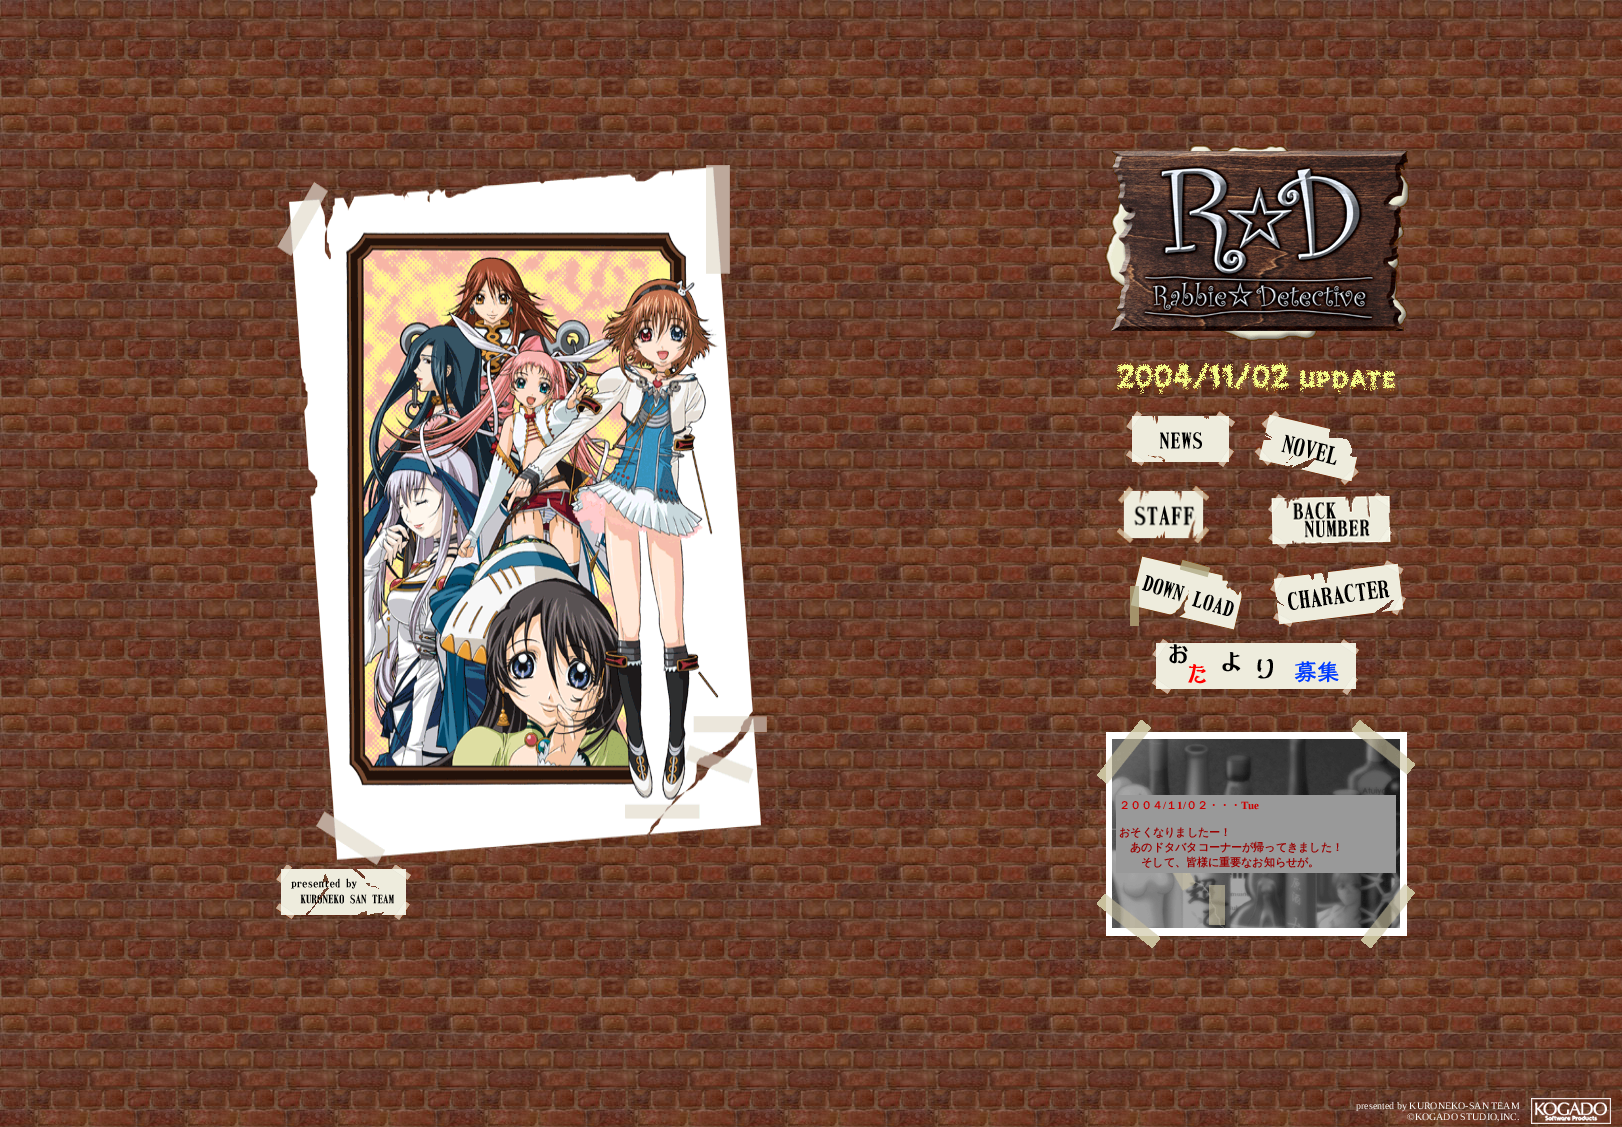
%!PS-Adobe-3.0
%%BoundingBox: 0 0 1622 1127
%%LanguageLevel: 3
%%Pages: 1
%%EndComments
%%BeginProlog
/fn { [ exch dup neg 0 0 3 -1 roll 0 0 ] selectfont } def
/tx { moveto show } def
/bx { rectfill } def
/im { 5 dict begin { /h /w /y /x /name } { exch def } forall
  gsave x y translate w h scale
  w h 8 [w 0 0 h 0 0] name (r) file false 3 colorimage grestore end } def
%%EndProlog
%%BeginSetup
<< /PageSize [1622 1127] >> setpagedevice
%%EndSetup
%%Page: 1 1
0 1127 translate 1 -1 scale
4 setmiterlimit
1 setgray
0 0 1622 1127 bx
(image0.raw) 0 0 1622 1127 im
(image1.raw) 277 165 490 700 im
(image2.raw) 276 865 135 55 im
(image3.raw) 1105 145 304 196 im
(image4.raw) 1117 362 279 32 im
(image5.raw) 1125 410 111 57 im
(image6.raw) 1255 410 104 76 im
(image7.raw) 1117 486 92 57 im
(image8.raw) 1267 491 126 58 im
(image9.raw) 1130 556 112 74 im
(image10.raw) 1269 560 137 67 im
(image11.raw) 1151 638 209 57 im
(image12.raw) 1097 720 318 228 im
0.6 setgray
1116 795 280 78 bx
/WenQuanYiZenHei-Bold 11 fn
0.8 0 0 setrgbcolor
(２００４ １) 1119 809 tx
/LiberationSerif-Bold 11 fn
(/) 1163 809 tx
(1/) 1177 809 tx
/WenQuanYiZenHei-Bold 11 fn
(０２・・・) 1186 809 tx
/LiberationSerif-Bold 11 fn
(Tue) 1241 809 tx
/WenQuanYiZenHei-Bold 11 fn
0.6 0 0 setrgbcolor
(おそくなりましたー！) 1119 836 tx
(あのドタバタコーナーが帰ってきました！) 1130 851 tx
(そして、皆様に重要なお知らせが。) 1141 866 tx
/LiberationSerif-Regular 10 fn
1 setgray
(presented by KURONEKO-SAN TEAM) 1356 1109 tx
(©KOGADO STUDIO,INC.) 1407 1120 tx
(image13.raw) 1531 1098 80 26 im
showpage
%%EOF
